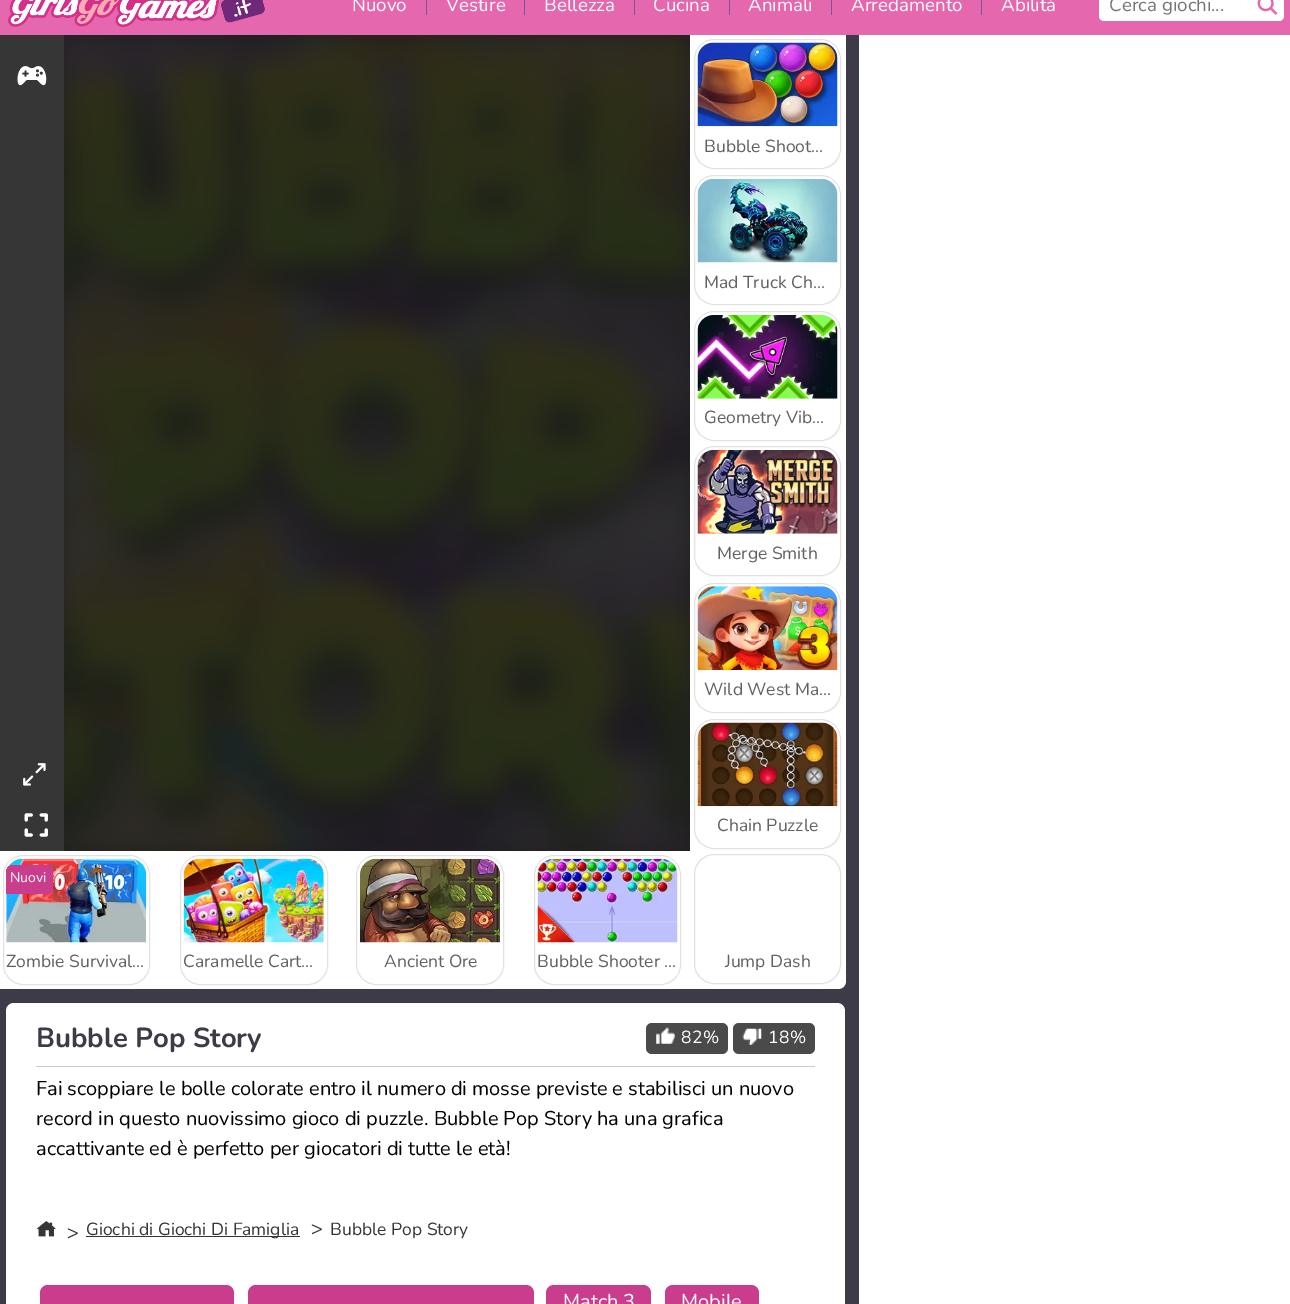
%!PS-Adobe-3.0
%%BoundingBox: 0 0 1290 1304
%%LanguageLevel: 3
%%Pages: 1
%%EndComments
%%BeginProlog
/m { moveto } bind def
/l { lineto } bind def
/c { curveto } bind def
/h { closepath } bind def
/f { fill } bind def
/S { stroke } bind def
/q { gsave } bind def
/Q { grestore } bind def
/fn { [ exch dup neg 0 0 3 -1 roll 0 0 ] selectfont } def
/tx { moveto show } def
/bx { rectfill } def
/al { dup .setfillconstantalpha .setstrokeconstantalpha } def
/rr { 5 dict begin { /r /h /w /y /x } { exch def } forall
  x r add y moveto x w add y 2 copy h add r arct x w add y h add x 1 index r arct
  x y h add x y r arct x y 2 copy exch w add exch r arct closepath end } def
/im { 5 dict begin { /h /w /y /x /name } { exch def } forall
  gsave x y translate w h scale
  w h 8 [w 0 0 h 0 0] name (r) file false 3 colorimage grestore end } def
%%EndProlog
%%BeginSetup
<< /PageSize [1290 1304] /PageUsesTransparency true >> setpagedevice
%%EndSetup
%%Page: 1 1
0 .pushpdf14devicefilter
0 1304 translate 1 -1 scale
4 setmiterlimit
0.235 0.231 0.278 setrgbcolor
0 0 1290 1304 bx
0.898 0.404 0.682 setrgbcolor
0 0 1290 35 bx
(image0.raw) 8 0 257 27 im
/Nunito-Regular 18.75 fn
1 setgray
(Nuovo) 352 11 tx
0.471 0.333 0.584 setrgbcolor
426 0 1 15 bx
1 setgray
(Vestire) 446 11 tx
0.471 0.333 0.584 setrgbcolor
524 0 1 15 bx
1 setgray
(Bellezza) 544 11 tx
0.471 0.333 0.584 setrgbcolor
634 0 1 15 bx
1 setgray
(Cucina) 653 11 tx
0.471 0.333 0.584 setrgbcolor
729 0 1 15 bx
1 setgray
(Animali) 748 11 tx
0.471 0.333 0.584 setrgbcolor
831 0 1 15 bx
1 setgray
(Arredamento) 851 11 tx
0.471 0.333 0.584 setrgbcolor
981 0 1 15 bx
1 setgray
(Abilità) 1001 11 tx
1099 -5 185 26 5 rr f
0.459 setgray
(Cerca giochi...) 1109 11 tx
(image1.raw) 1257 0 21 15 im
1 setgray
0 851 690 138 bx
0.212 setgray
0 35 64 816 bx
(image2.raw) 17 66 30 20 im
(image3.raw) 23 763 23 23 im
(image4.raw) 24 813 24 24 im
0.298 setgray
64 35 626 816 bx
(image5.raw) 64 35 626 817 im
0.6 al
0 setgray
64 35 626 816 bx
1 al
1 setgray
690 35 m 846 35 l 846 981 l 846 985.5 842.5 989 838 989 c 690 989 l h f
0.886 setgray
694.5 39.5 146 129 19.5 rr S
(image6.raw) 697 42 141 85 im
/Nunito-Regular 17.5 fn
0.38 setgray
(Bubble Shoot…) 704 152 tx
0.886 setgray
694.5 175.5 146 129 19.5 rr S
(image7.raw) 697 178 141 85 im
0.38 setgray
(Mad Truck Ch…) 704 288 tx
0.886 setgray
694.5 311.5 146 129 19.5 rr S
(image8.raw) 697 315 141 84 im
0.38 setgray
(Geometry Vib…) 704 423 tx
0.886 setgray
694.5 446.5 146 129 19.5 rr S
(image9.raw) 697 450 141 84 im
0.38 setgray
(Merge Smith) 717 559 tx
0.886 setgray
694.5 583.5 146 129 19.5 rr S
(image10.raw) 697 586 141 84 im
0.38 setgray
(Wild West Ma…) 704 695 tx
0.886 setgray
694.5 719.5 146 129 19.5 rr S
(image11.raw) 697 722 141 85 im
0.38 setgray
(Chain Puzzle) 717 831 tx
0.886 setgray
694.5 854.5 146 129 19.5 rr S
0.38 setgray
(Jump Dash) 725 967 tx
0.886 setgray
3.5 855.5 146 129 19.5 rr S
(image12.raw) 6 858 141 85 im
q
22 859 m 130 859 l 139 859 146 866 146 875 c 146 943 l 6 943 l 6 875 l 6 866 13 859 22 859 c h clip newpath
0.792 0.235 0.549 setrgbcolor
12 865 m 48 865 l 51 865 53 867 53 870 c 53 889 l 53 892 51 894 48 894 c 6 894 l 6 871 l 6 867.5 8.5 865 12 865 c h f
Q
/Nunito-Regular 14 fn
1 setgray
(Nuovi) 10 882 tx
6 974 1 1 bx
/Nunito-Regular 17.5 fn
0.38 setgray
(Zombie Survival…) 6 967 tx
0.886 setgray
180.5 855.5 147 129 19.5 rr S
(image13.raw) 183 858 141 85 im
0.38 setgray
(Caramelle Cart…) 183 967 tx
0.886 setgray
356.5 855.5 147 129 19.5 rr S
(image14.raw) 360 858 140 85 im
0.38 setgray
(Ancient Ore) 384 967 tx
0.886 setgray
534.5 855.5 146 129 19.5 rr S
(image15.raw) 537 858 141 85 im
1 setgray
677 974 1 1 bx
0.38 setgray
(Bubble Shooter …) 537 967 tx
1 setgray
6 1003 839 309 8 rr f
0.8 setgray
36 1066 779 1 bx
/Nunito-Bold 27.5 fn
0.235 0.231 0.278 setrgbcolor
(Bubble Pop Story) 36 1047 tx
0.29 setgray
646 1023 82 31 6 rr f
(image16.raw) 656 1027 19 17 im
/Nunito-Regular 17.5 fn
1 setgray
681 1043 m 0.5 0 (82%) ashow
0.29 setgray
733 1023 82 31 6 rr f
(image17.raw) 742 1028 20 17 im
1 setgray
768 1043 m 0.5 0 (18%) ashow
/Nunito-Regular 20 fn
0 setgray
(Fai scoppiare le bolle colorate entro il numero di mosse previste e stabilisci un nuovo) 36 1095 tx
(record in questo nuovissimo gioco di puzzle. Bubble Pop Story ha una grafica) 36 1125 tx
(accattivante ed è perfetto per giocatori di tutte le età!) 36 1155 tx
(image18.raw) 36 1221 20 16 im
0.212 setgray
(>) 67 1239 tx
86 1236 214 1 bx
/Nunito-Regular 17.5 fn
(Giochi di Giochi Di Famiglia) 86 1235 tx
/Nunito-Regular 20 fn
(>) 311 1235 tx
/Nunito-Regular 17.5 fn
(Bubble Pop Story) 330 1235 tx
0.792 0.235 0.549 setrgbcolor
40 1285 194 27 8 rr f
248 1285 286 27 8 rr f
546 1285 105 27 8 rr f
/Nunito-Regular 20 fn
1 setgray
(Match 3) 563 1308 tx
0.792 0.235 0.549 setrgbcolor
665 1285 94 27 8 rr f
1 setgray
(Mobile) 681 1308 tx
859 35 431 1269 bx
.poppdf14devicefilter showpage
%%EOF
